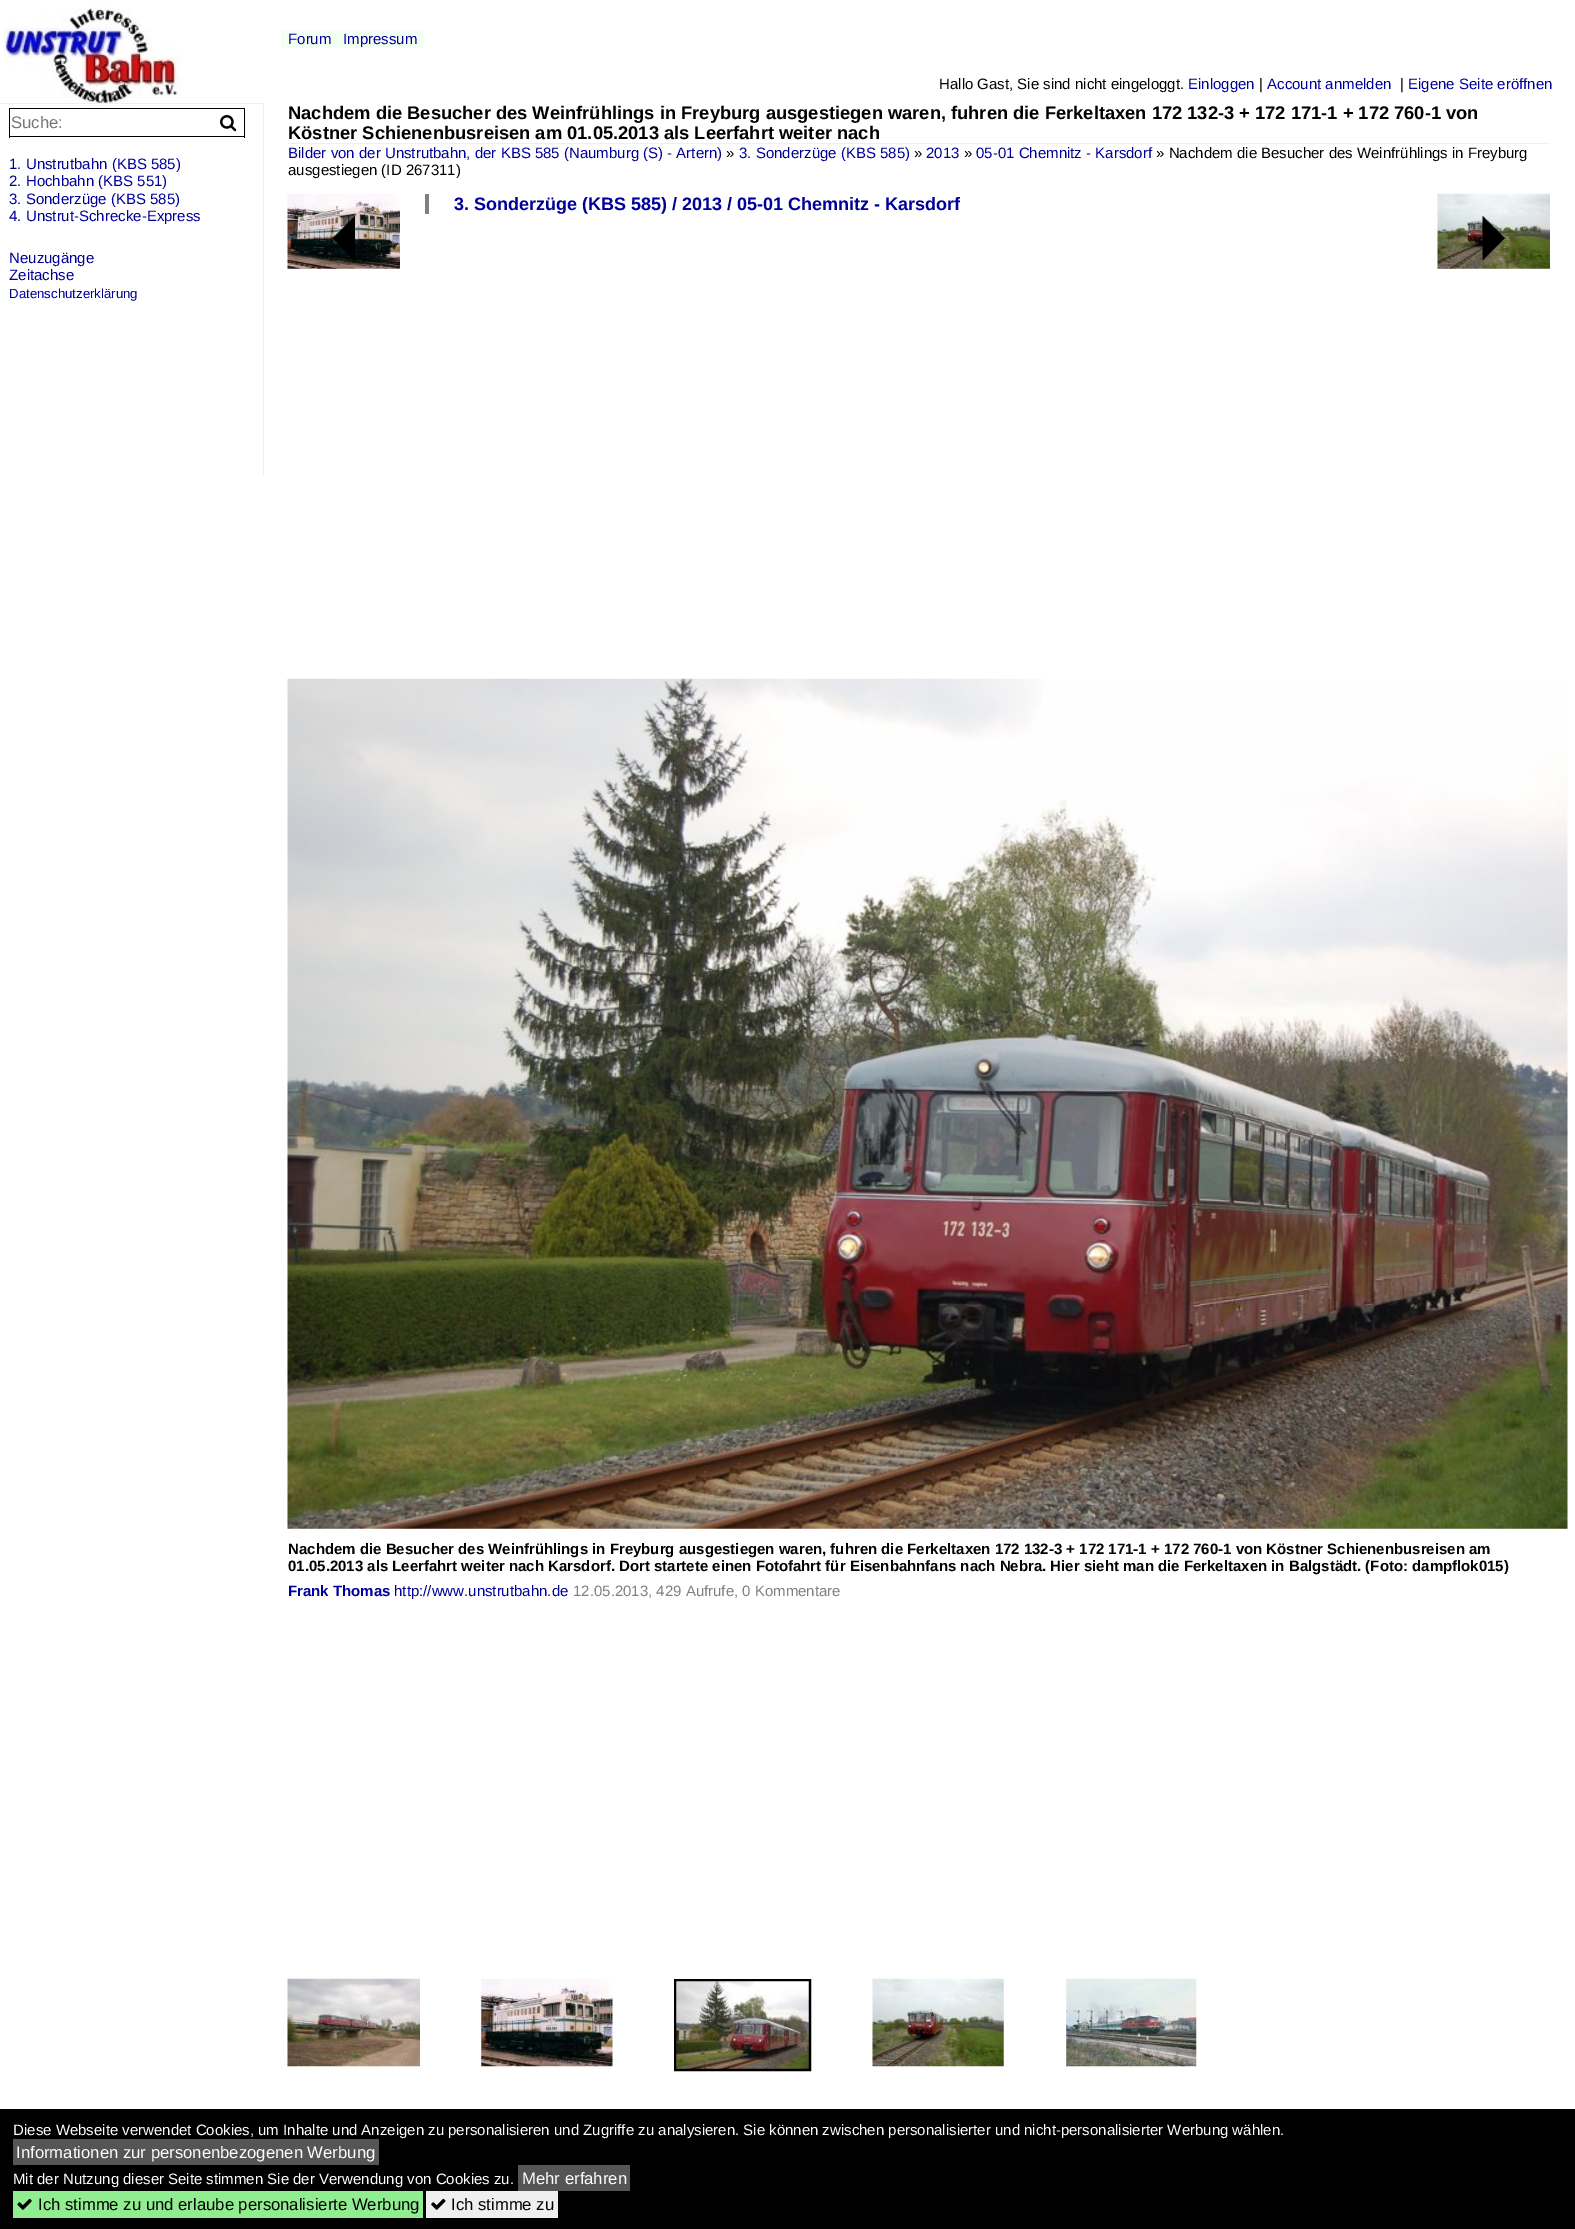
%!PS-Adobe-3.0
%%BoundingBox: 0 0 1575 2229
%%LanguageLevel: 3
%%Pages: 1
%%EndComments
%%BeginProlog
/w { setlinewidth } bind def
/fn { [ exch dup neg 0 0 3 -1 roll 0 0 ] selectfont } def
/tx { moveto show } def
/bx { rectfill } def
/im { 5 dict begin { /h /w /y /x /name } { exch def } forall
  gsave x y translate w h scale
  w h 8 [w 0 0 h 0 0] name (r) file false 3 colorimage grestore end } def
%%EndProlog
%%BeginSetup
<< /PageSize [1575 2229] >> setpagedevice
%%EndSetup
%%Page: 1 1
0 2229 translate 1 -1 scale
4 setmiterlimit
1 setgray
0 0 1575 2229 bx
(image0.raw) 4 7 176 101 im
0.957 1 0.957 setrgbcolor
281 30 143 18 bx
/LiberationSans-Regular 15 fn
0 0 0.6 setrgbcolor
(Forum) 288 44 tx
(Impressum) 343 44 tx
0 setgray
(Hallo Gast, Sie sind nicht eingeloggt.) 939 89 tx
0 0 0.6 setrgbcolor
(Einloggen) 1188 89 tx
0 setgray
(|) 1259 89 tx
0 0 0.6 setrgbcolor
(Account anmelden) 1267 89 tx
0 setgray
(|) 1400 89 tx
0 0 0.6 setrgbcolor
(Eigene Seite eröffnen) 1408 89 tx
0.937 setgray
0 103 264 1 bx
263 103 1 373 bx
0 setgray
9 108 236 1 bx
9 136 204 1 bx
9 108 1 30 bx
/LiberationSans-Regular 16.7 fn
0.459 setgray
(Suche:) 11 128 tx
0 setgray
244 108 1 30 bx
213 136 32 1 bx
(image1.raw) 220 115 17 17 im
/LiberationSans-Regular 15 fn
0 0 0.6 setrgbcolor
(1. Unstrutbahn \(KBS 585\)) 9 169 tx
(2. Hochbahn \(KBS 551\)) 9 186 tx
(3. Sonderzüge \(KBS 585\)) 9 204 tx
(4. Unstrut-Schrecke-Express) 9 221 tx
(Neuzugänge) 9 263 tx
(Zeitachse) 9 280 tx
/LiberationSans-Regular 13.25 fn
(Datenschutzerklärung) 9 298 tx
0.937 setgray
288 143 1262 1 bx
/LiberationSans-Bold 18.33 fn
0 setgray
(Nachdem die Besucher des Weinfrühlings in Freyburg ausgestiegen waren, fuhren die Ferkeltaxen 172 132-3 + 172 171-1 + 172 760-1 von) 288 119 tx
(Köstner Schienenbusreisen am 01.05.2013 als Leerfahrt weiter nach) 288 139 tx
/LiberationSans-Regular 15 fn
0 0 0.6 setrgbcolor
(Bilder von der Unstrutbahn, der KBS 585 \(Naumburg \(S\) - Artern\)) 288 158 tx
0 setgray
(») 726 158 tx
0 0 0.6 setrgbcolor
(3. Sonderzüge \(KBS 585\)) 739 158 tx
0 setgray
(») 914 158 tx
0 0 0.6 setrgbcolor
(2013) 926 158 tx
0 setgray
(») 964 158 tx
0 0 0.6 setrgbcolor
(05-01 Chemnitz - Karsdorf) 976 158 tx
0 setgray
(» Nachdem die Besucher des Weinfrühlings in Freyburg) 1156 158 tx
(ausgestiegen \(ID 267311\)) 288 175 tx
(image2.raw) 287 194 113 75 im
(image3.raw) 332 216 23 44 im
0.502 setgray
425 194 4 20 bx
/LiberationSans-Bold 18 fn
0 0 0.6 setrgbcolor
(3. Sonderzüge \(KBS 585\) / 2013 / 05-01 Chemnitz - Karsdorf) 454 210 tx
(image4.raw) 1437 193 113 76 im
(image5.raw) 1482 216 23 44 im
(image6.raw) 287 678 1281 851 im
/LiberationSans-Bold 15 fn
0 setgray
(Nachdem die Besucher des Weinfrühlings in Freyburg ausgestiegen waren, fuhren die Ferkeltaxen 172 132-3 + 172 171-1 + 172 760-1 von Köstner Schienenbusreisen am) 288 1554 tx
(01.05.2013 als Leerfahrt weiter nach Karsdorf. Dort startete einen Fotofahrt für Eisenbahnfans nach Nebra. Hier sieht man die Ferkeltaxen in Balgstädt. \(Foto: dampflok015\)) 288 1571 tx
0 0 0.6 setrgbcolor
(Frank Thomas) 288 1596 tx
/LiberationSans-Regular 15 fn
(http://www.unstrutbahn.de) 394 1596 tx
0.502 setgray
(12.05.2013, 429 Aufrufe, 0 Kommentare) 573 1596 tx
(image7.raw) 287 1978 133 89 im
(image8.raw) 481 1979 132 88 im
0 setgray
3 w
675.5 1980.5 134 89 rectstroke
(image9.raw) 676 1981 133 88 im
(image10.raw) 872 1978 132 89 im
(image11.raw) 1066 1978 131 89 im
0 2109 1575 120 bx
1 setgray
(Diese Webseite verwendet Cookies, um Inhalte und Anzeigen zu personalisieren und Zugriffe zu analysieren. Sie können zwischen personalisierter und nicht-personalisierter Werbung wählen.) 13 2135 tx
0.333 setgray
13 2139 366 26 bx
/LiberationSans-Regular 16.7 fn
1 setgray
(Informationen zur personenbezogenen Werbung) 16 2158 tx
/LiberationSans-Regular 15 fn
(Mit der Nutzung dieser Seite stimmen Sie der Verwendung von Cookies zu.) 13 2184 tx
0.333 setgray
518 2165 112 26 bx
/LiberationSans-Regular 16.7 fn
1 setgray
(Mehr erfahren) 522 2184 tx
0.565 0.933 0.565 setrgbcolor
13 2191 410 27 bx
(image12.raw) 17 2198 15 12 im
0 setgray
(Ich stimme zu und erlaube personalisierte Werbung) 38 2210 tx
0.937 setgray
426 2191 132 27 bx
(image13.raw) 431 2198 15 12 im
0 setgray
(Ich stimme zu) 451 2210 tx
showpage
%%EOF
